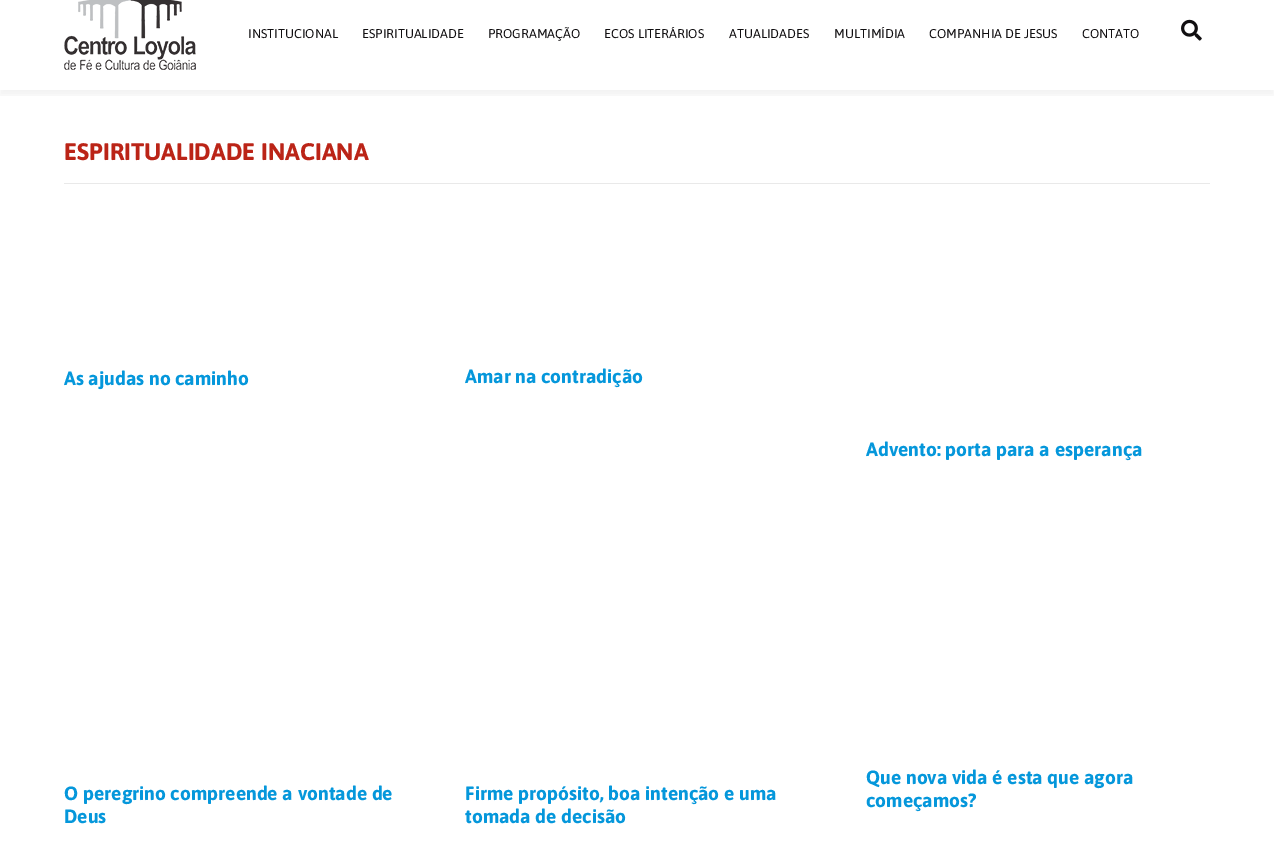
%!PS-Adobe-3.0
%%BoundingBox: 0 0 1274 854
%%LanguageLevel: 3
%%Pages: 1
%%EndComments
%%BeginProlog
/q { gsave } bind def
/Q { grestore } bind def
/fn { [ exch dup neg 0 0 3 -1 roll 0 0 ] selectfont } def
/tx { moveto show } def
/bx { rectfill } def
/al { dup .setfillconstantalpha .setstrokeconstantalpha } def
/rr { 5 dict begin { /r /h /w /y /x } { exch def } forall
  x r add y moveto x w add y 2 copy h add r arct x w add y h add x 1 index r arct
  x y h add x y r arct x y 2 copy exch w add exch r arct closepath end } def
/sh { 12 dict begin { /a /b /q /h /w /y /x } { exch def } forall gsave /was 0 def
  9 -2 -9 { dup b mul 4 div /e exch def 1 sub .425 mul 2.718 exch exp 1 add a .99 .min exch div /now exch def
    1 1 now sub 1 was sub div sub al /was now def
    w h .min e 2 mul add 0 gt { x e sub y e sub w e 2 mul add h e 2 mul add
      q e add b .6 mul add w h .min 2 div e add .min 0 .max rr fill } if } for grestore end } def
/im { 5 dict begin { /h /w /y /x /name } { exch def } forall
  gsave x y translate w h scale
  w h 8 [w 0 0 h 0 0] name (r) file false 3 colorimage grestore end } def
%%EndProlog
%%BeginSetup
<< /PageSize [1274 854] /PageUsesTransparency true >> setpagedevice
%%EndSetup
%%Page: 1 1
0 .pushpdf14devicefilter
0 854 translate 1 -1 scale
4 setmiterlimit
1 setgray
0 0 1274 854 bx
q
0 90 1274 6 rectclip
0 setgray
0 -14 1274 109 0 4.5 0.05 sh
Q
(image0.raw) 64 0 132 70 im
/Asap-Regular 12.75 fn
0.067 0.059 0.067 setrgbcolor
(INSTITUCIONAL) 248 38 tx
(ESPIRITUALIDADE) 362 38 tx
(PROGRAMAÇÃO) 488 38 tx
(ECOS LITERÁRIOS) 604 38 tx
(ATUALIDADES) 729 38 tx
(MULTIMÍDIA) 834 38 tx
(COMPANHIA DE JESUS) 929 38 tx
(CONTATO) 1082 38 tx
(image1.raw) 1181 19 21 22 im
0.914 setgray
64 183 1146 1 bx
/Asap-Bold 24 fn
0.733 0.141 0.09 setrgbcolor
(ESPIRITUALIDADE INACIANA) 64 160 tx
/Asap-Bold 19.25 fn
0.02 0.592 0.859 setrgbcolor
(As ajudas no caminho) 64 385 tx
(Amar na contradição) 465 383 tx
(Advento: porta para a esperança) 866 456 tx
(O peregrino compreende a vontade de) 64 800 tx
(Deus) 64 823 tx
(Firme propósito, boa intenção e uma) 465 800 tx
(tomada de decisão) 465 823 tx
(Que nova vida é esta que agora) 866 784 tx
(começamos?) 866 807 tx
.poppdf14devicefilter showpage
%%EOF
